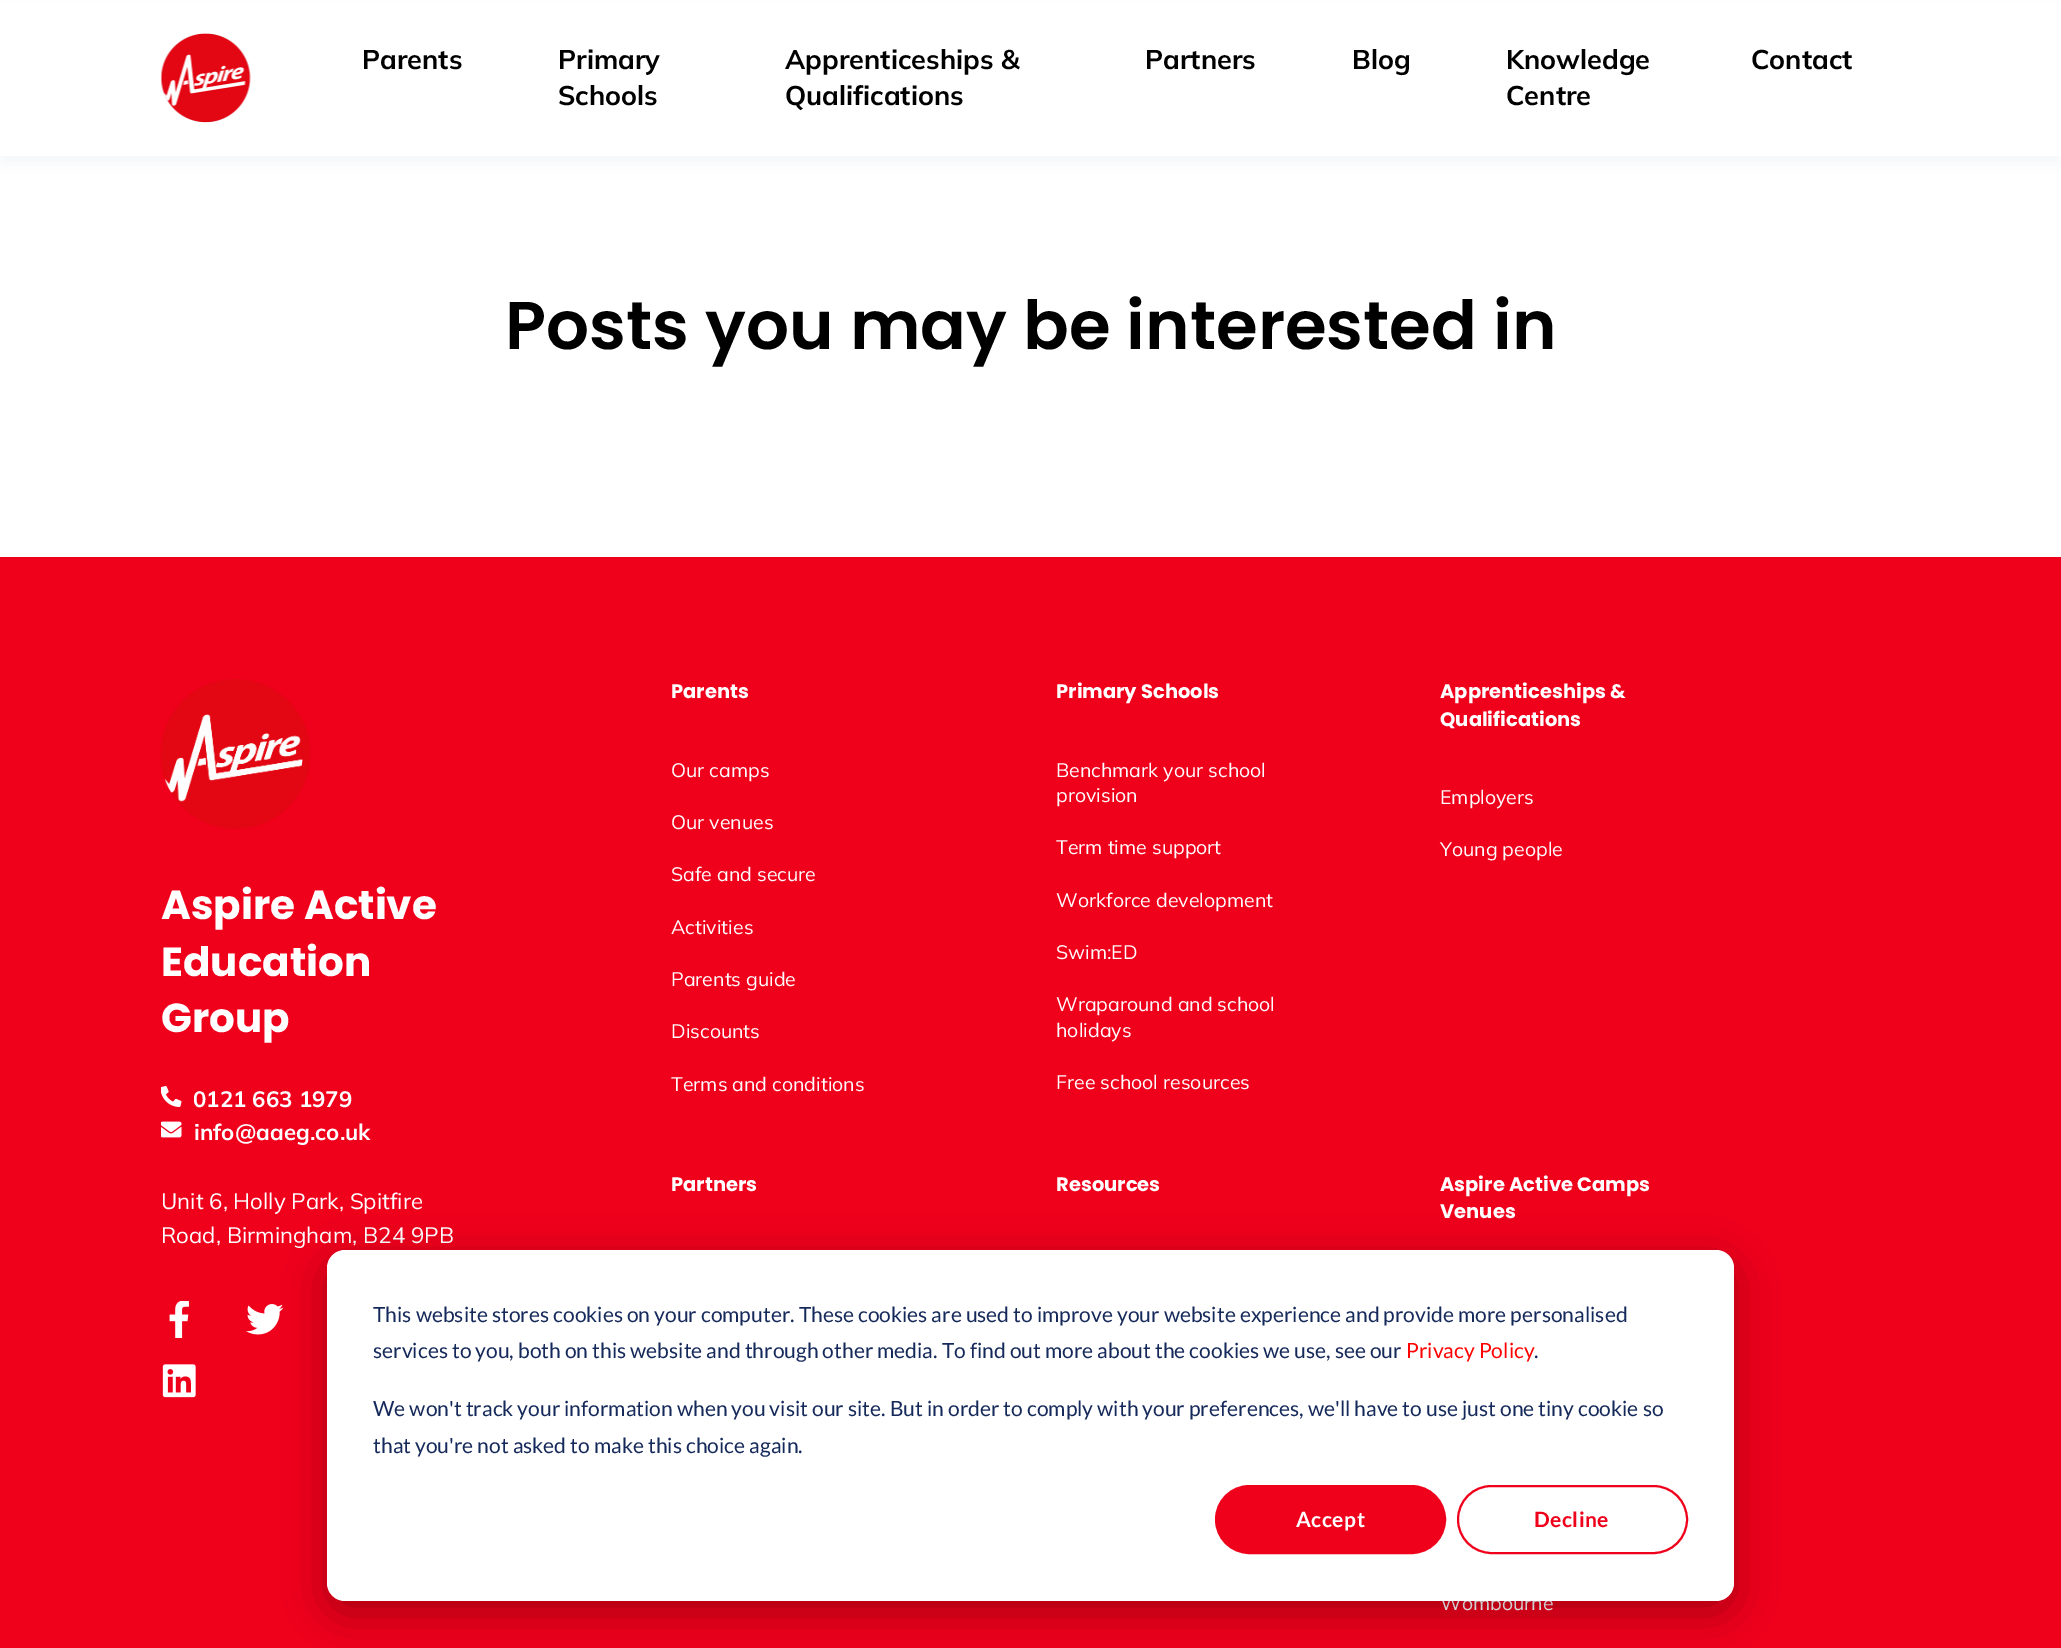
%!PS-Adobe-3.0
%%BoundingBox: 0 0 2061 1648
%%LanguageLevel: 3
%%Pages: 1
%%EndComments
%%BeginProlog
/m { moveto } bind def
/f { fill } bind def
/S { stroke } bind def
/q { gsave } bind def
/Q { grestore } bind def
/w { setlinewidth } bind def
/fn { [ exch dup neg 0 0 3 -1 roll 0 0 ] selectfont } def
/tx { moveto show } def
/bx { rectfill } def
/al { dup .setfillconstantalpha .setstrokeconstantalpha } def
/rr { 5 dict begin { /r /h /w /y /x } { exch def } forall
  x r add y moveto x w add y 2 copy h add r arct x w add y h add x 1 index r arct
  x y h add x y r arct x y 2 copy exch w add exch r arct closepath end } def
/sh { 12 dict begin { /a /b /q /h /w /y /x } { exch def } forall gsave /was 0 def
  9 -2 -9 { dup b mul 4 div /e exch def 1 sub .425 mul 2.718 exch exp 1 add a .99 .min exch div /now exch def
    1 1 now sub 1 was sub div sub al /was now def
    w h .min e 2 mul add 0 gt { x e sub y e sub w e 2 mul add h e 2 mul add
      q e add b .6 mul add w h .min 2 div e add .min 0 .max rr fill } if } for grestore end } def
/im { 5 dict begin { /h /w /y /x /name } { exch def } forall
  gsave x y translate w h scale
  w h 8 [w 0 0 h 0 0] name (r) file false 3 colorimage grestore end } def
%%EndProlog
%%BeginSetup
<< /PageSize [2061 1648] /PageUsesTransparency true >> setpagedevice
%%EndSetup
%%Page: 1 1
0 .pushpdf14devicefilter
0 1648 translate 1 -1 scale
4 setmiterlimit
1 setgray
0 0 2061 1648 bx
0.604 0.631 0.694 setrgbcolor
0 8 2061 156 0 7.5 0.1 sh
1 setgray
0 3 2061 153 bx
(image0.raw) 160 33 91 90 im
/Mulish-Bold 27 fn
0 setgray
(Parents) 362 69 tx
(Primary) 558 69 tx
(Schools) 558 105 tx
(Apprenticeships &) 785 69 tx
(Qualifications) 785 105 tx
(Partners) 1145 69 tx
(Blog) 1352 69 tx
(Knowledge) 1506 69 tx
(Centre) 1506 105 tx
(Contact) 1751 69 tx
/Poppins-SemiBold 67.5 fn
(Posts you may be interested in) 505 349 tx
0.937 0 0.106 setrgbcolor
0 557 2061 1091 bx
(image1.raw) 160 679 151 150 im
/Poppins-Bold 40.5 fn
1 setgray
(Aspire Active) 161 919 tx
(Education) 161 976 tx
(Group) 161 1032 tx
(image2.raw) 161 1086 21 21 im
/Mulish-Bold 22.25 fn
(0121 663 1979) 193 1107 tx
(image3.raw) 161 1121 21 17 im
(info@aaeg.co.uk) 194 1140 tx
/Mulish-Regular 22.25 fn
(Unit 6, Holly Park, Spitfire) 161 1209 tx
(Road, Birmingham, B24 9PB) 161 1243 tx
(image4.raw) 169 1301 20 37 im
(image5.raw) 246 1304 38 31 im
(image6.raw) 162 1364 34 34 im
/Poppins-Bold 19.5 fn
(Parents) 671 698 tx
/Mulish-Regular 19.5 fn
(Our camps) 671 777 tx
(Our venues) 671 829 tx
(Safe and secure) 671 881 tx
(Activities) 671 934 tx
(Parents guide) 671 986 tx
(Discounts) 671 1038 tx
(Terms and conditions) 671 1091 tx
/Poppins-Bold 19.5 fn
(Primary Schools) 1056 698 tx
/Mulish-Regular 19.5 fn
(Benchmark your school) 1056 777 tx
(provision) 1056 802 tx
(Term time support) 1056 854 tx
(Workforce development) 1056 907 tx
(Swim:ED) 1056 959 tx
(Wraparound and school) 1056 1011 tx
(holidays) 1056 1037 tx
(Free school resources) 1056 1089 tx
/Poppins-Bold 19.5 fn
(Apprenticeships &) 1440 698 tx
(Qualifications) 1440 726 tx
/Mulish-Regular 19.5 fn
(Employers) 1440 804 tx
(Young people) 1440 856 tx
/Poppins-Bold 19.5 fn
(Partners) 671 1191 tx
(Resources) 1056 1191 tx
(Aspire Active Camps) 1440 1191 tx
(Venues) 1440 1218 tx
/Mulish-Regular 19.5 fn
(Wombourne) 1440 1610 tx
0 setgray
327 1262 1407 351 18 21 0.28 sh
1 setgray
327 1250 1407 351 18 rr f
/Lato-Regular 21 fn
0.082 0.161 0.353 setrgbcolor
(This website stores cookies on your computer. These cookies are used to improve your website experience and provide more personalised) 373 1322 tx
(services to you, both on this website and through other media. To find out more about the cookies we use, see our) 373 1358 tx
1 0.008 0.004 setrgbcolor
(Privacy Policy) 1406 1358 tx
0.082 0.161 0.353 setrgbcolor
(.) 1534 1358 tx
(We won't track your information when you visit our site. But in order to comply with your preferences, we'll have to use just one tiny cookie so) 373 1416 tx
(that you're not asked to make this choice again.) 373 1453 tx
0.937 0.004 0.106 setrgbcolor
1216 1486 229 67 33.5 rr q f Q
2 w
S
/Lato-Bold 21 fn
1 setgray
1296 1527 m 0.5 0 (Accept) ashow
0.937 0.004 0.106 setrgbcolor
1458 1486 229 67 33.5 rr S
1534 1527 m 0.5 0 (Decline) ashow
.poppdf14devicefilter showpage
%%EOF
